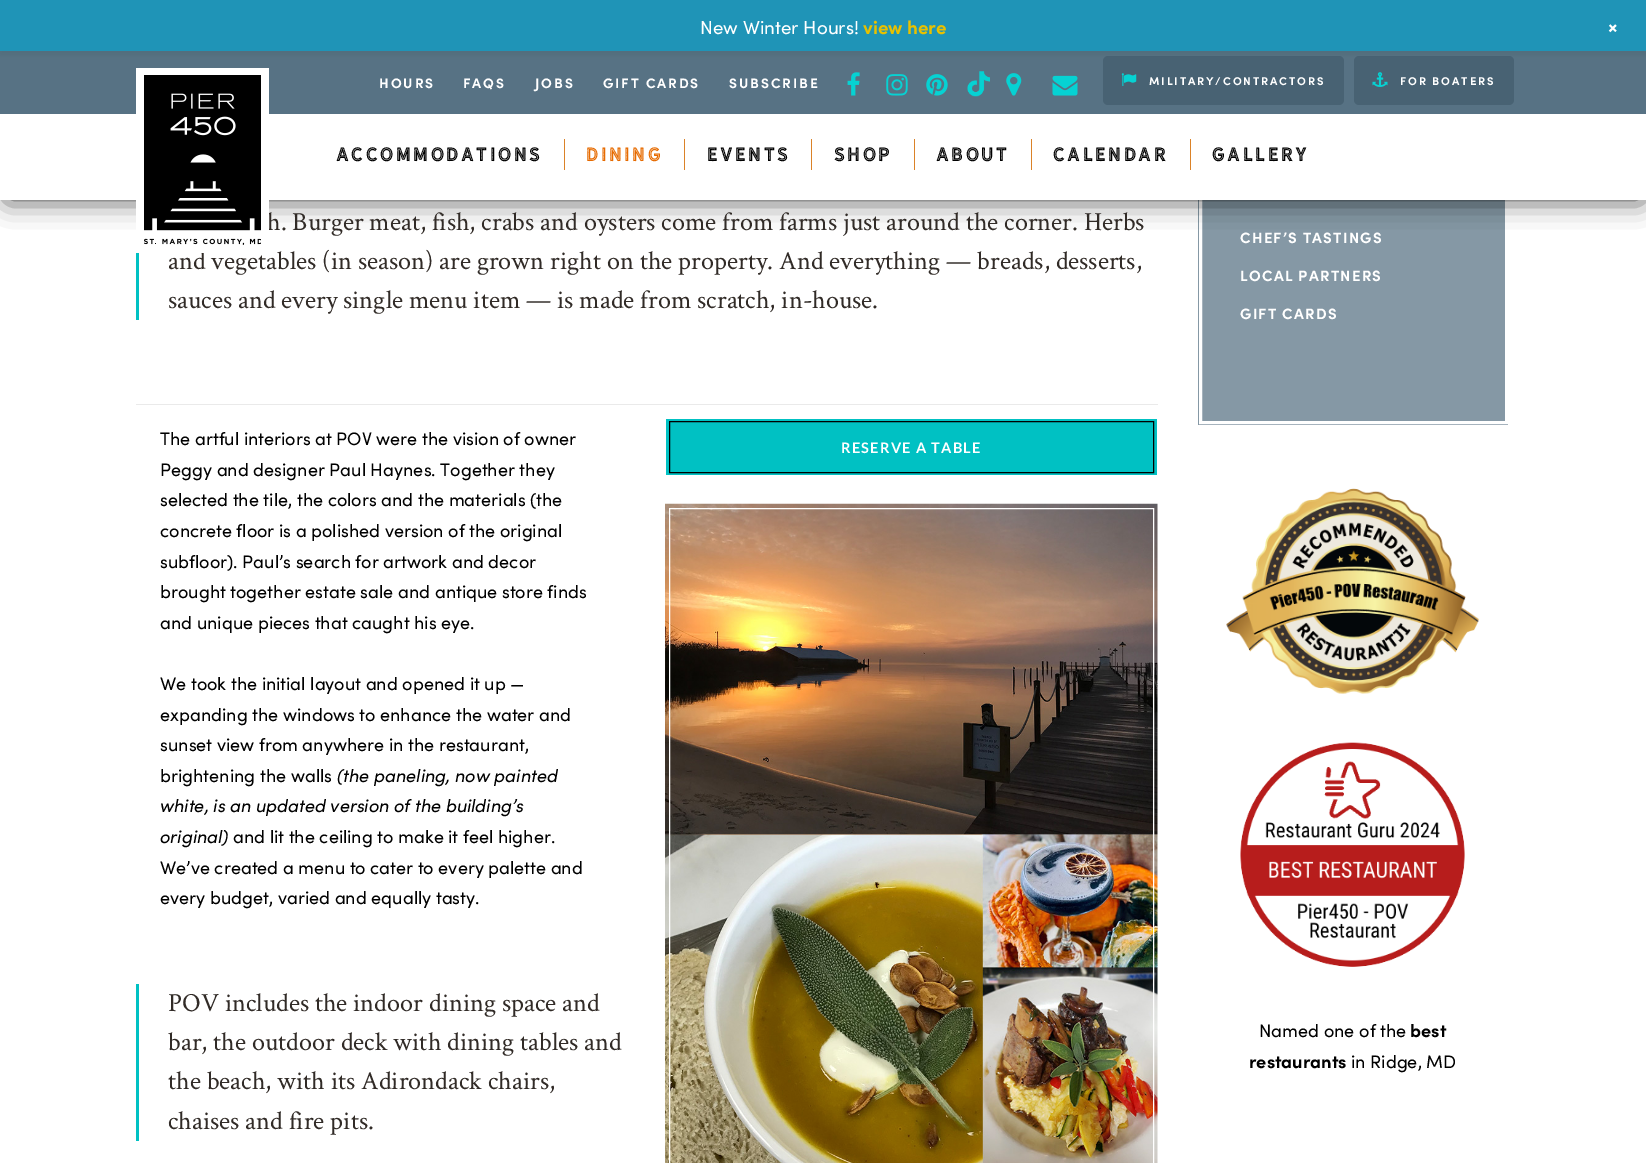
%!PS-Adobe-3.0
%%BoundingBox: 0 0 1646 1163
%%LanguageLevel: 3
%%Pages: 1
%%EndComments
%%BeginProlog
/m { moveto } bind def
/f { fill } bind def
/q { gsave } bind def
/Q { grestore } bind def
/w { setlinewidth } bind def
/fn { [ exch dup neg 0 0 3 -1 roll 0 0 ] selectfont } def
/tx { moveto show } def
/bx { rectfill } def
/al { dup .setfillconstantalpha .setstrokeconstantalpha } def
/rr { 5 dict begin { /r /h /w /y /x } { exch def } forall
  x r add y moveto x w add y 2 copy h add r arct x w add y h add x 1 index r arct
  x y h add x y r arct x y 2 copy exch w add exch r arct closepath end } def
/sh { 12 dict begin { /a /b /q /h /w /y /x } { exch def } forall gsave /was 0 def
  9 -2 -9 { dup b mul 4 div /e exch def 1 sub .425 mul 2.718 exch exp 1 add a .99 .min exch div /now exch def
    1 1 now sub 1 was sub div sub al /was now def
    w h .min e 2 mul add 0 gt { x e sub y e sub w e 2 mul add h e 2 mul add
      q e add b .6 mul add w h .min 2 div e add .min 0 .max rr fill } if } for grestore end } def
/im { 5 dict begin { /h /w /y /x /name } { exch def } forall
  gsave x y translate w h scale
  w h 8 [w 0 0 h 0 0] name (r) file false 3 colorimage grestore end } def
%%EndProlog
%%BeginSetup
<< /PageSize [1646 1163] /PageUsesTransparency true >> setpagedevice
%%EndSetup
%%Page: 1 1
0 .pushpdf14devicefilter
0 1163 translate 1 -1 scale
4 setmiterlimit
1 setgray
0 0 1646 1163 bx
0.522 0.596 0.647 setrgbcolor
1198 200 310 225 bx
1 setgray
3 w
1200.5 29.5 306 393 rectstroke
0 setgray
8 61 1633 137 0 14 0.87 sh
0.341 0.447 0.518 setrgbcolor
0 51 1646 63 bx
0.282 0.384 0.451 setrgbcolor
1103 56 241 49 5 rr f
1354 56 160 49 5 rr f
0 setgray
0 4 1646 51 0 2.5 0.05 sh
0.122 0.58 0.718 setrgbcolor
0 0 1646 51 bx
/Sofia-Regular 18.75 fn
1 setgray
(New Winter Hours!) 700 34 tx
/Sofia-Bold 18.75 fn
0.91 0.757 0 setrgbcolor
(view here) 863 34 tx
/Sofia-Bold 22 fn
1 setgray
q 1605 28 translate 45 rotate 0 0 m (+) show Q
0 114 1646 86 bx
/Sofia-Bold 13.75 fn
379 88 m 1.9 0 (HOURS) ashow
463 88 m 1.9 0 (FAQS) ashow
535 88 m 1.9 0 (JOBS) ashow
603 88 m 1.9 0 (GIFT CARDS) ashow
729 88 m 1.9 0 (SUBSCRIBE) ashow
(image0.raw) 847 72 13 24 im
(image1.raw) 886 74 22 22 im
(image2.raw) 926 74 22 22 im
(image3.raw) 967 71 23 26 im
(image4.raw) 1006 73 16 23 im
(image5.raw) 1052 75 26 21 im
(image6.raw) 1121 73 16 13 im
/Sofia-Bold 11.25 fn
1149 85 m 1.9 0 (MILITARY/CONTRACTORS) ashow
(image7.raw) 1372 72 16 15 im
1400 85 m 1.9 0 (FOR BOATERS) ashow
/CrimsonText-Regular 26.25 fn
0.192 0.169 0.153 setrgbcolor
(h. Burger meat, fish, crabs and oysters come from farms just around the corner. Herbs) 267 230 tx
(and vegetables \(in season\) are grown right on the property. And everything — breads, desserts,) 168 269 tx
1 setgray
136 68 133 185 bx
(image8.raw) 144 75 117 170 im
0.859 0.51 0.157 setrgbcolor
564 139 1 31 bx
/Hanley-Regular 18 fn
0 setgray
336 161 m 2.5 0 (ACCOMMODATIONS) ashow
0.859 0.51 0.157 setrgbcolor
684 139 1 31 bx
0.902 0.416 0 setrgbcolor
586 161 m 2.5 0 (DINING) ashow
0.859 0.51 0.157 setrgbcolor
811 139 1 31 bx
0 setgray
707 161 m 2.5 0 (EVENTS) ashow
0.859 0.51 0.157 setrgbcolor
914 139 1 31 bx
0 setgray
834 161 m 2.5 0 (SHOP) ashow
0.859 0.51 0.157 setrgbcolor
1031 139 1 31 bx
0 setgray
936 161 m 2.5 0 (ABOUT) ashow
0.859 0.51 0.157 setrgbcolor
1190 139 1 31 bx
0 setgray
1053 161 m 2.5 0 (CALENDAR) ashow
1212 161 m 2.5 0 (GALLERY) ashow
0 0.757 0.765 setrgbcolor
136 253 3 67 bx
/CrimsonText-Regular 26.25 fn
0.192 0.169 0.153 setrgbcolor
(sauces and every single menu item — is made from scratch, in-house.) 168 308 tx
0.918 setgray
136 404 1022 1 bx
/Sofia-Regular 18 fn
0 setgray
(The artful interiors at POV were the vision of owner) 160 445 tx
(Peggy and designer Paul Haynes. Together they) 160 476 tx
(selected the tile, the colors and the materials \(the) 160 506 tx
(concrete floor is a polished version of the original) 160 537 tx
(subfloor\). Paul’s search for artwork and decor) 160 568 tx
(brought together estate sale and antique store finds) 160 598 tx
(and unique pieces that caught his eye.) 160 629 tx
(We took the initial layout and opened it up —) 160 690 tx
(expanding the windows to enhance the water and) 160 721 tx
(sunset view from anywhere in the restaurant,) 160 751 tx
(brightening the walls) 160 782 tx
/Sofia-Italic 18 fn
(\(the paneling, now painted) 337 782 tx
(white, is an updated version of the building’s) 160 812 tx
(original\)) 160 843 tx
/Sofia-Regular 18 fn
(and lit the ceiling to make it feel higher.) 233 843 tx
(We’ve created a menu to cater to every palette and) 160 874 tx
(every budget, varied and equally tasty.) 160 904 tx
0 0.757 0.765 setrgbcolor
136 984 3 157 bx
/CrimsonText-Regular 26.25 fn
0.192 0.169 0.153 setrgbcolor
(POV includes the indoor dining space and) 168 1011 tx
(bar, the outdoor deck with dining tables and) 168 1050 tx
(the beach, with its Adirondack chairs,) 168 1089 tx
(chaises and fire pits.) 168 1129 tx
0 0.757 0.765 setrgbcolor
666 419 491 56 bx
0 setgray
1 w
669.5 421.5 484 51 rectstroke
/Lato-Bold 14.5 fn
1 setgray
841 453 m 1.25 0 (RESERVE A TABLE) ashow
(image9.raw) 665 503 493 660 im
669.5 508.5 484 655 rectstroke
/Sofia-Bold 15 fn
1240 243 m 1.25 0 (CHEF’S TASTINGS) ashow
1240 281 m 1.25 0 (LOCAL PARTNERS) ashow
1240 319 m 1.25 0 (GIFT CARDS) ashow
(image10.raw) 1226 488 254 206 im
(image11.raw) 1240 742 225 225 im
/Sofia-Regular 18 fn
0 setgray
(Named one of the) 1259 1037 tx
/Sofia-Bold 18 fn
(best) 1410 1037 tx
(restaurants) 1249 1068 tx
/Sofia-Regular 18 fn
(in Ridge, MD) 1351 1068 tx
.poppdf14devicefilter showpage
%%EOF
